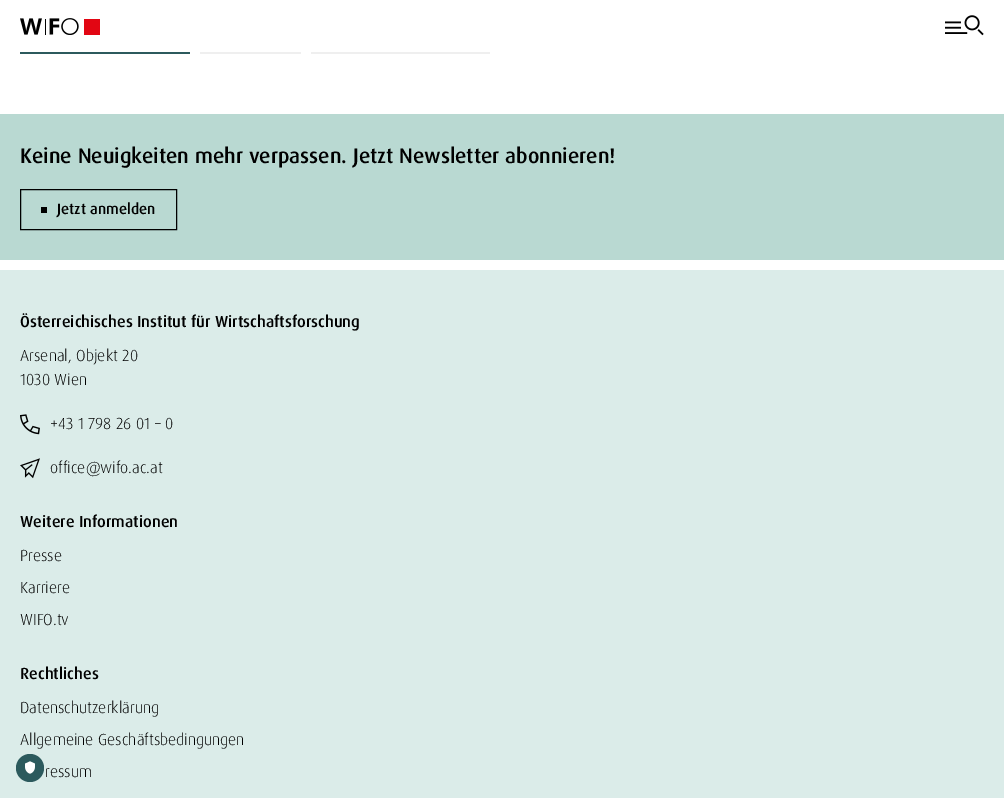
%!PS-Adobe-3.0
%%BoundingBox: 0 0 1004 798
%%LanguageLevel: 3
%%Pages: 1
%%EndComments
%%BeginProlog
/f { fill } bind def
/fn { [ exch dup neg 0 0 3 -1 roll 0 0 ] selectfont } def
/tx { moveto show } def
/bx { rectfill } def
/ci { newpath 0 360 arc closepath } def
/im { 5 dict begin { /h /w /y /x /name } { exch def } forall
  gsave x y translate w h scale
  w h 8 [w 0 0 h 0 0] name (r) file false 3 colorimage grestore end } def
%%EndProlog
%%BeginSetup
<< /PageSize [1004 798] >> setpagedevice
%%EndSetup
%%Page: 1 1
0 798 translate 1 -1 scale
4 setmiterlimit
1 setgray
0 0 1004 798 bx
(image0.raw) 20 18 80 17 im
(image1.raw) 945 15 39 21 im
0.173 0.353 0.365 setrgbcolor
20 52 170 2 bx
0.937 setgray
200 52 101 2 bx
311 52 179 2 bx
0.859 0.925 0.914 setrgbcolor
0 270 1004 528 bx
0.725 0.851 0.824 setrgbcolor
0 114 1004 146 bx
/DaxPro-Medium 21 fn
0 setgray
(Keine Neuigkeiten mehr verpassen. Jetzt Newsletter abonnieren!) 20 163 tx
20.5 189.5 156 40 rectstroke
41 207 6 6 bx
/DaxPro-Medium 15 fn
(Jetzt anmelden) 57 214 tx
/DaxPro-Medium 16 fn
(Österreichisches Institut für Wirtschaftsforschung) 20 327 tx
/DaxPro-Light 16 fn
(Arsenal, Objekt 20) 20 361 tx
(1030 Wien) 20 385 tx
(image2.raw) 20 414 20 21 im
(+43 1 798 26 01 – 0) 50 429 tx
(image3.raw) 20 458 20 21 im
(office@wifo.ac.at) 50 473 tx
/DaxPro-Medium 16 fn
(Weitere Informationen) 20 527 tx
/DaxPro-Light 16 fn
(Presse) 20 561 tx
(Karriere) 20 593 tx
(WIFO.tv) 20 625 tx
/DaxPro-Medium 16 fn
(Rechtliches) 20 679 tx
/DaxPro-Light 16 fn
(Datenschutzerklärung) 20 713 tx
(Allgemeine Geschäftsbedingungen) 20 745 tx
(ressum) 45 777 tx
0.173 0.353 0.365 setrgbcolor
30 768 14 ci f
(image4.raw) 25 761 10 13 im
showpage
%%EOF
